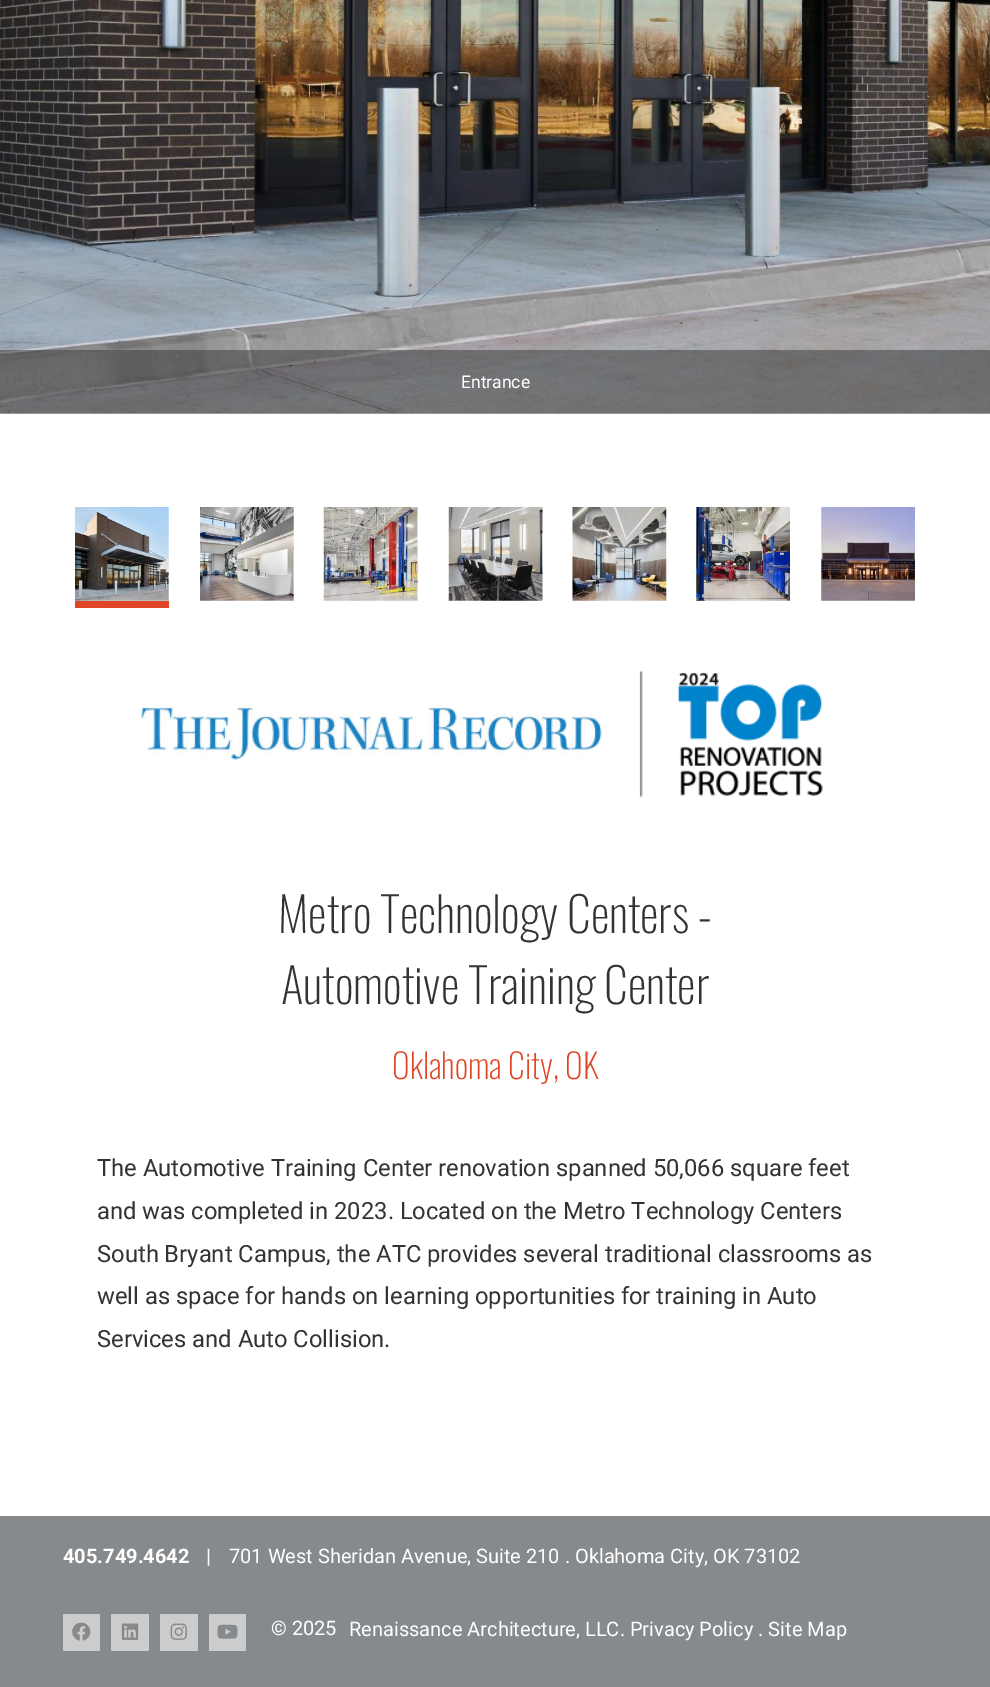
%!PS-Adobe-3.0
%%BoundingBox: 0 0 990 1687
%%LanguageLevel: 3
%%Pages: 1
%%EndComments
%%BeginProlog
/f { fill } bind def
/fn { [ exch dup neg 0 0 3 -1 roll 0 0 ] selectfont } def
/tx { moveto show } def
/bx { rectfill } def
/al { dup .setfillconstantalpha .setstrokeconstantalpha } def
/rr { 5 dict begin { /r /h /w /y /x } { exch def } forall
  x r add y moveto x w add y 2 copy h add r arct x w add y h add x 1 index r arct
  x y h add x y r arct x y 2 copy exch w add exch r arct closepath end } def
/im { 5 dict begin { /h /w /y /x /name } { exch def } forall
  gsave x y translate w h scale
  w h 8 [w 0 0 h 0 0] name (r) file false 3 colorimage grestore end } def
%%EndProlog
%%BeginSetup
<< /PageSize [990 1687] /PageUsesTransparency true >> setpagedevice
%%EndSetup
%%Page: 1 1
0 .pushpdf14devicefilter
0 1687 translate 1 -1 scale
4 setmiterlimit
1 setgray
0 0 990 1687 bx
(image0.raw) 0 0 990 414 im
0.5 al
0.216 setgray
0 350 990 64 bx
/Roboto-Regular 17.5 fn
1 al
1 setgray
(Entrance) 461 388 tx
(image1.raw) 75 507 94 94 im
0.875 0.275 0.149 setrgbcolor
75 601 94 7 bx
(image2.raw) 200 507 94 94 im
(image3.raw) 323 507 95 94 im
(image4.raw) 448 507 95 94 im
(image5.raw) 572 507 95 94 im
(image6.raw) 696 507 94 94 im
(image7.raw) 821 507 94 94 im
(image8.raw) 141 670 682 128 im
/Oswald-ExtraLight 48 fn
0.2 setgray
(Metro Technology Centers -) 278 933 tx
(Automotive Training Center) 281 1004 tx
/Oswald-ExtraLight 34 fn
0.871 0.275 0.145 setrgbcolor
(Oklahoma City, OK) 392 1079 tx
/Roboto-Regular 23.75 fn
0.2 setgray
(The Automotive Training Center renovation spanned 50,066 square feet) 97 1176 tx
(and was completed in 2023. Located on the Metro Technology Centers) 97 1219 tx
(South Bryant Campus, the ATC provides several traditional classrooms as) 97 1262 tx
(well as space for hands on learning opportunities for training in Auto) 97 1304 tx
(Services and Auto Collision.) 97 1347 tx
0.529 0.541 0.553 setrgbcolor
0 1516 990 171 bx
/Roboto-Bold 20 fn
1 setgray
(405.749.4642) 63 1563 tx
/Roboto-Regular 20 fn
(|) 206 1563 tx
(701 West Sheridan Avenue, Suite 210 . Oklahoma City, OK 73102) 229 1563 tx
0.804 0.8 0.8 setrgbcolor
63 1614 37 37 1 rr f
(image9.raw) 72 1622 19 19 im
111 1614 38 37 1 rr f
(image10.raw) 121 1623 18 17 im
160 1614 38 37 1 rr f
(image11.raw) 170 1623 17 17 im
209 1614 37 37 1 rr f
(image12.raw) 217 1624 21 15 im
1 setgray
(© 2025) 271 1635 tx
(Renaissance Architecture, LLC. Privacy Policy . Site Map) 349 1636 tx
.poppdf14devicefilter showpage
%%EOF
